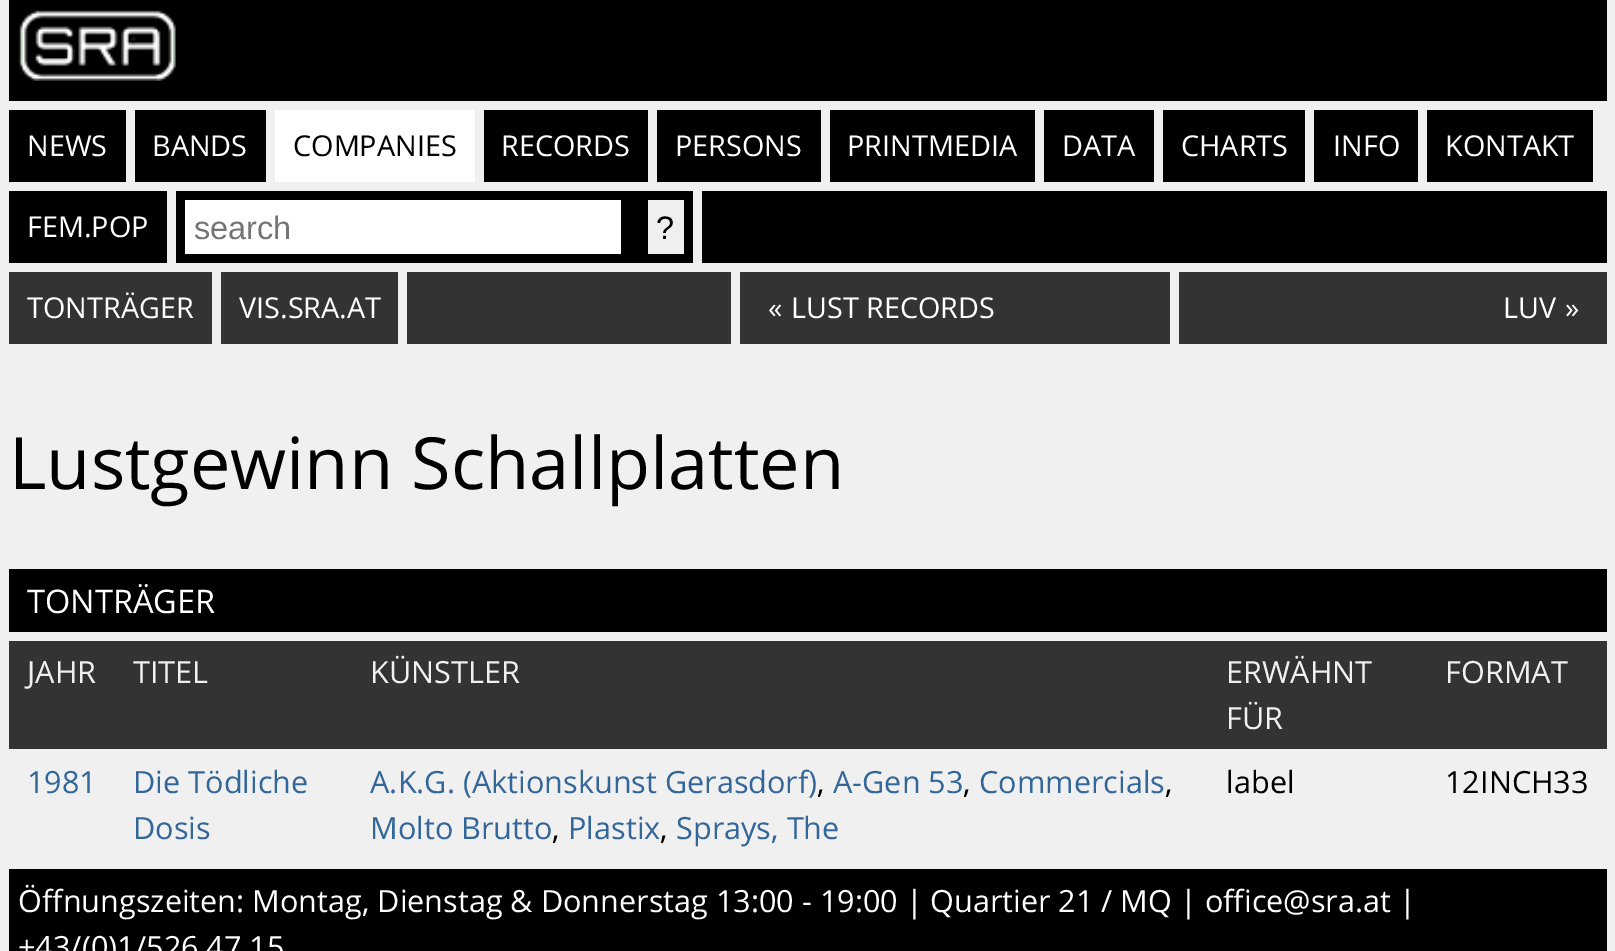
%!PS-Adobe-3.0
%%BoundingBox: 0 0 1615 951
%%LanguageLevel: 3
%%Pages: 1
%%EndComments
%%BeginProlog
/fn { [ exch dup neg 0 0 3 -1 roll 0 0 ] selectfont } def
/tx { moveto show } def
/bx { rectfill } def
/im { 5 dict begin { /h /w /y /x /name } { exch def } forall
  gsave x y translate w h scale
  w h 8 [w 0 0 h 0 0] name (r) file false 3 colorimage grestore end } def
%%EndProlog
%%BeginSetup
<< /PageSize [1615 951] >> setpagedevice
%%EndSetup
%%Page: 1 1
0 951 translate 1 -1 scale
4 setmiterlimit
0.941 setgray
0 0 1615 951 bx
0 setgray
9 0 1598 101 bx
(image0.raw) 18 10 158 71 im
9 110 117 72 bx
/OpenSans-Regular 28.75 fn
1 setgray
(NEWS) 27 156 tx
0 setgray
135 110 131 72 bx
1 setgray
(BANDS) 152 156 tx
275 110 200 72 bx
0 setgray
(COMPANIES) 293 156 tx
484 110 164 72 bx
1 setgray
(RECORDS) 501 156 tx
0 setgray
657 110 164 72 bx
1 setgray
(PERSONS) 675 156 tx
0 setgray
830 110 205 72 bx
1 setgray
(PRINTMEDIA) 847 156 tx
0 setgray
1044 110 110 72 bx
1 setgray
(DATA) 1062 156 tx
0 setgray
1163 110 142 72 bx
1 setgray
(CHARTS) 1181 156 tx
0 setgray
1314 110 104 72 bx
1 setgray
(INFO) 1333 156 tx
0 setgray
1427 110 166 72 bx
1 setgray
(KONTAKT) 1445 156 tx
0 setgray
9 191 158 72 bx
1 setgray
(FEM.POP) 27 237 tx
0 setgray
176 191 517 72 bx
1 setgray
185 200 436 54 bx
/LiberationSans-Regular 32.5 fn
0.459 setgray
(search) 194 239 tx
0.937 setgray
648 200 36 54 bx
0 setgray
(?) 656 239 tx
702 191 905 72 bx
0.2 setgray
9 272 203 72 bx
/OpenSans-Regular 28.75 fn
1 setgray
(TONTRÄGER) 27 318 tx
0.2 setgray
221 272 177 72 bx
1 setgray
(VIS.SRA.AT) 239 318 tx
0.2 setgray
407 272 324 72 bx
740 272 430 72 bx
1 setgray
(«) 768 318 tx
(LUST RECORDS) 791 318 tx
0.2 setgray
1179 272 428 72 bx
1 setgray
(LUV) 1503 318 tx
(») 1565 318 tx
/OpenSans-Regular 72 fn
0 setgray
(Lustgewinn Schallplatten) 9 489 tx
9 569 1598 63 bx
/OpenSans-Regular 32.5 fn
1 setgray
(TONTRÄGER) 27 613 tx
0.2 setgray
9 641 1598 108 bx
/OpenSans-Regular 30.6 fn
0.941 setgray
(JAHR) 27 683 tx
(TITEL) 133 683 tx
(KÜNSTLER) 370 683 tx
(ERWÄHNT) 1226 683 tx
(FÜR) 1226 729 tx
(FORMAT) 1445 683 tx
0.2 0.4 0.6 setrgbcolor
(1981) 27 793 tx
(Die Tödliche) 133 793 tx
(Dosis) 133 839 tx
(A.K.G. \(Aktionskunst Gerasdorf\)) 370 793 tx
0 setgray
(,) 817 793 tx
0.2 0.4 0.6 setrgbcolor
(A-Gen 53) 833 793 tx
0 setgray
(,) 963 793 tx
0.2 0.4 0.6 setrgbcolor
(Commercials) 979 793 tx
0 setgray
(,) 1165 793 tx
0.2 0.4 0.6 setrgbcolor
(Molto Brutto) 370 839 tx
0 setgray
(,) 552 839 tx
0.2 0.4 0.6 setrgbcolor
(Plastix) 568 839 tx
0 setgray
(,) 660 839 tx
0.2 0.4 0.6 setrgbcolor
(Sprays, The) 676 839 tx
0 setgray
(label) 1226 793 tx
(12INCH33) 1445 793 tx
9 869 1598 82 bx
1 setgray
(Öffnungszeiten: Montag, Dienstag & Donnerstag 13:00 - 19:00 |) 18 912 tx
(Quartier 21 / MQ | office@sra.at |) 930 912 tx
(+43/\(0\)1/526 47 15) 18 958 tx
showpage
%%EOF
